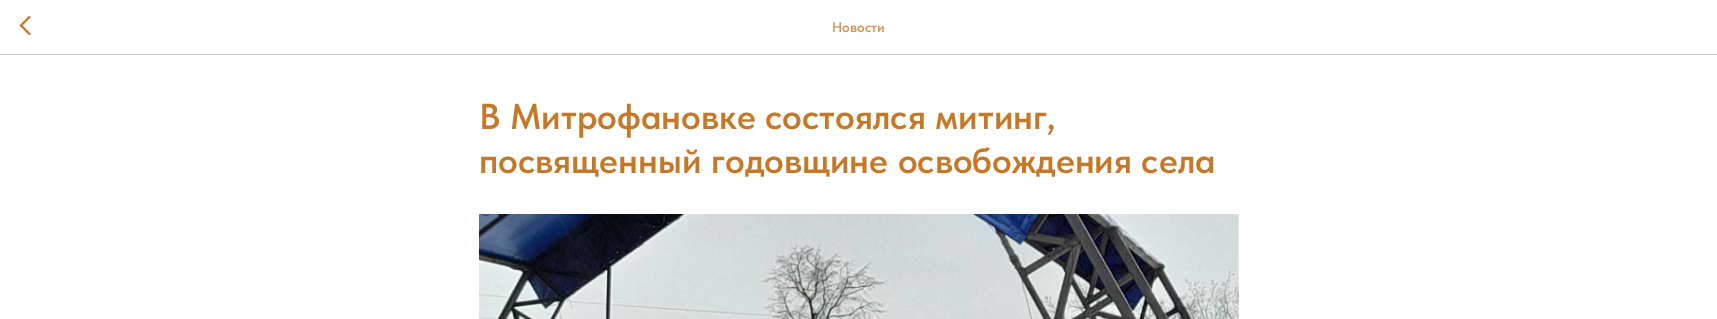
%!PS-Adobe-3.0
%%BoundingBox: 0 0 1717 319
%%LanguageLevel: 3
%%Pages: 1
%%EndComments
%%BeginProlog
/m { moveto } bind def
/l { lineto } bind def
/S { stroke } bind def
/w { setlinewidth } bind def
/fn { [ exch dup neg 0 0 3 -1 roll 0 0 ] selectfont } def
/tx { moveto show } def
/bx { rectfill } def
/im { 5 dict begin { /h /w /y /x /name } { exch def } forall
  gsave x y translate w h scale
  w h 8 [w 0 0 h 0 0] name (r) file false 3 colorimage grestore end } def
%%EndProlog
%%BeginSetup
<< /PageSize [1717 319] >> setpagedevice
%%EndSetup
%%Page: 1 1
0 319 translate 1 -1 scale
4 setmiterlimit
1 setgray
0 0 1717 319 bx
0.8 setgray
0 54 1717 1 bx
0.78 0.471 0.149 setrgbcolor
2 w
30 34.5 m 21 25.5 l 30 16.5 l S
/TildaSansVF-SemiBold 14 fn
0.824 0.576 0.318 setrgbcolor
(Новости) 832 32 tx
/TildaSansVF-SemiBold 36 fn
0.78 0.471 0.149 setrgbcolor
(В Митрофановке состоялся митинг,) 479 129 tx
(посвященный годовщине освобождения села) 479 173 tx
(image0.raw) 479 214 760 105 im
showpage
%%EOF
